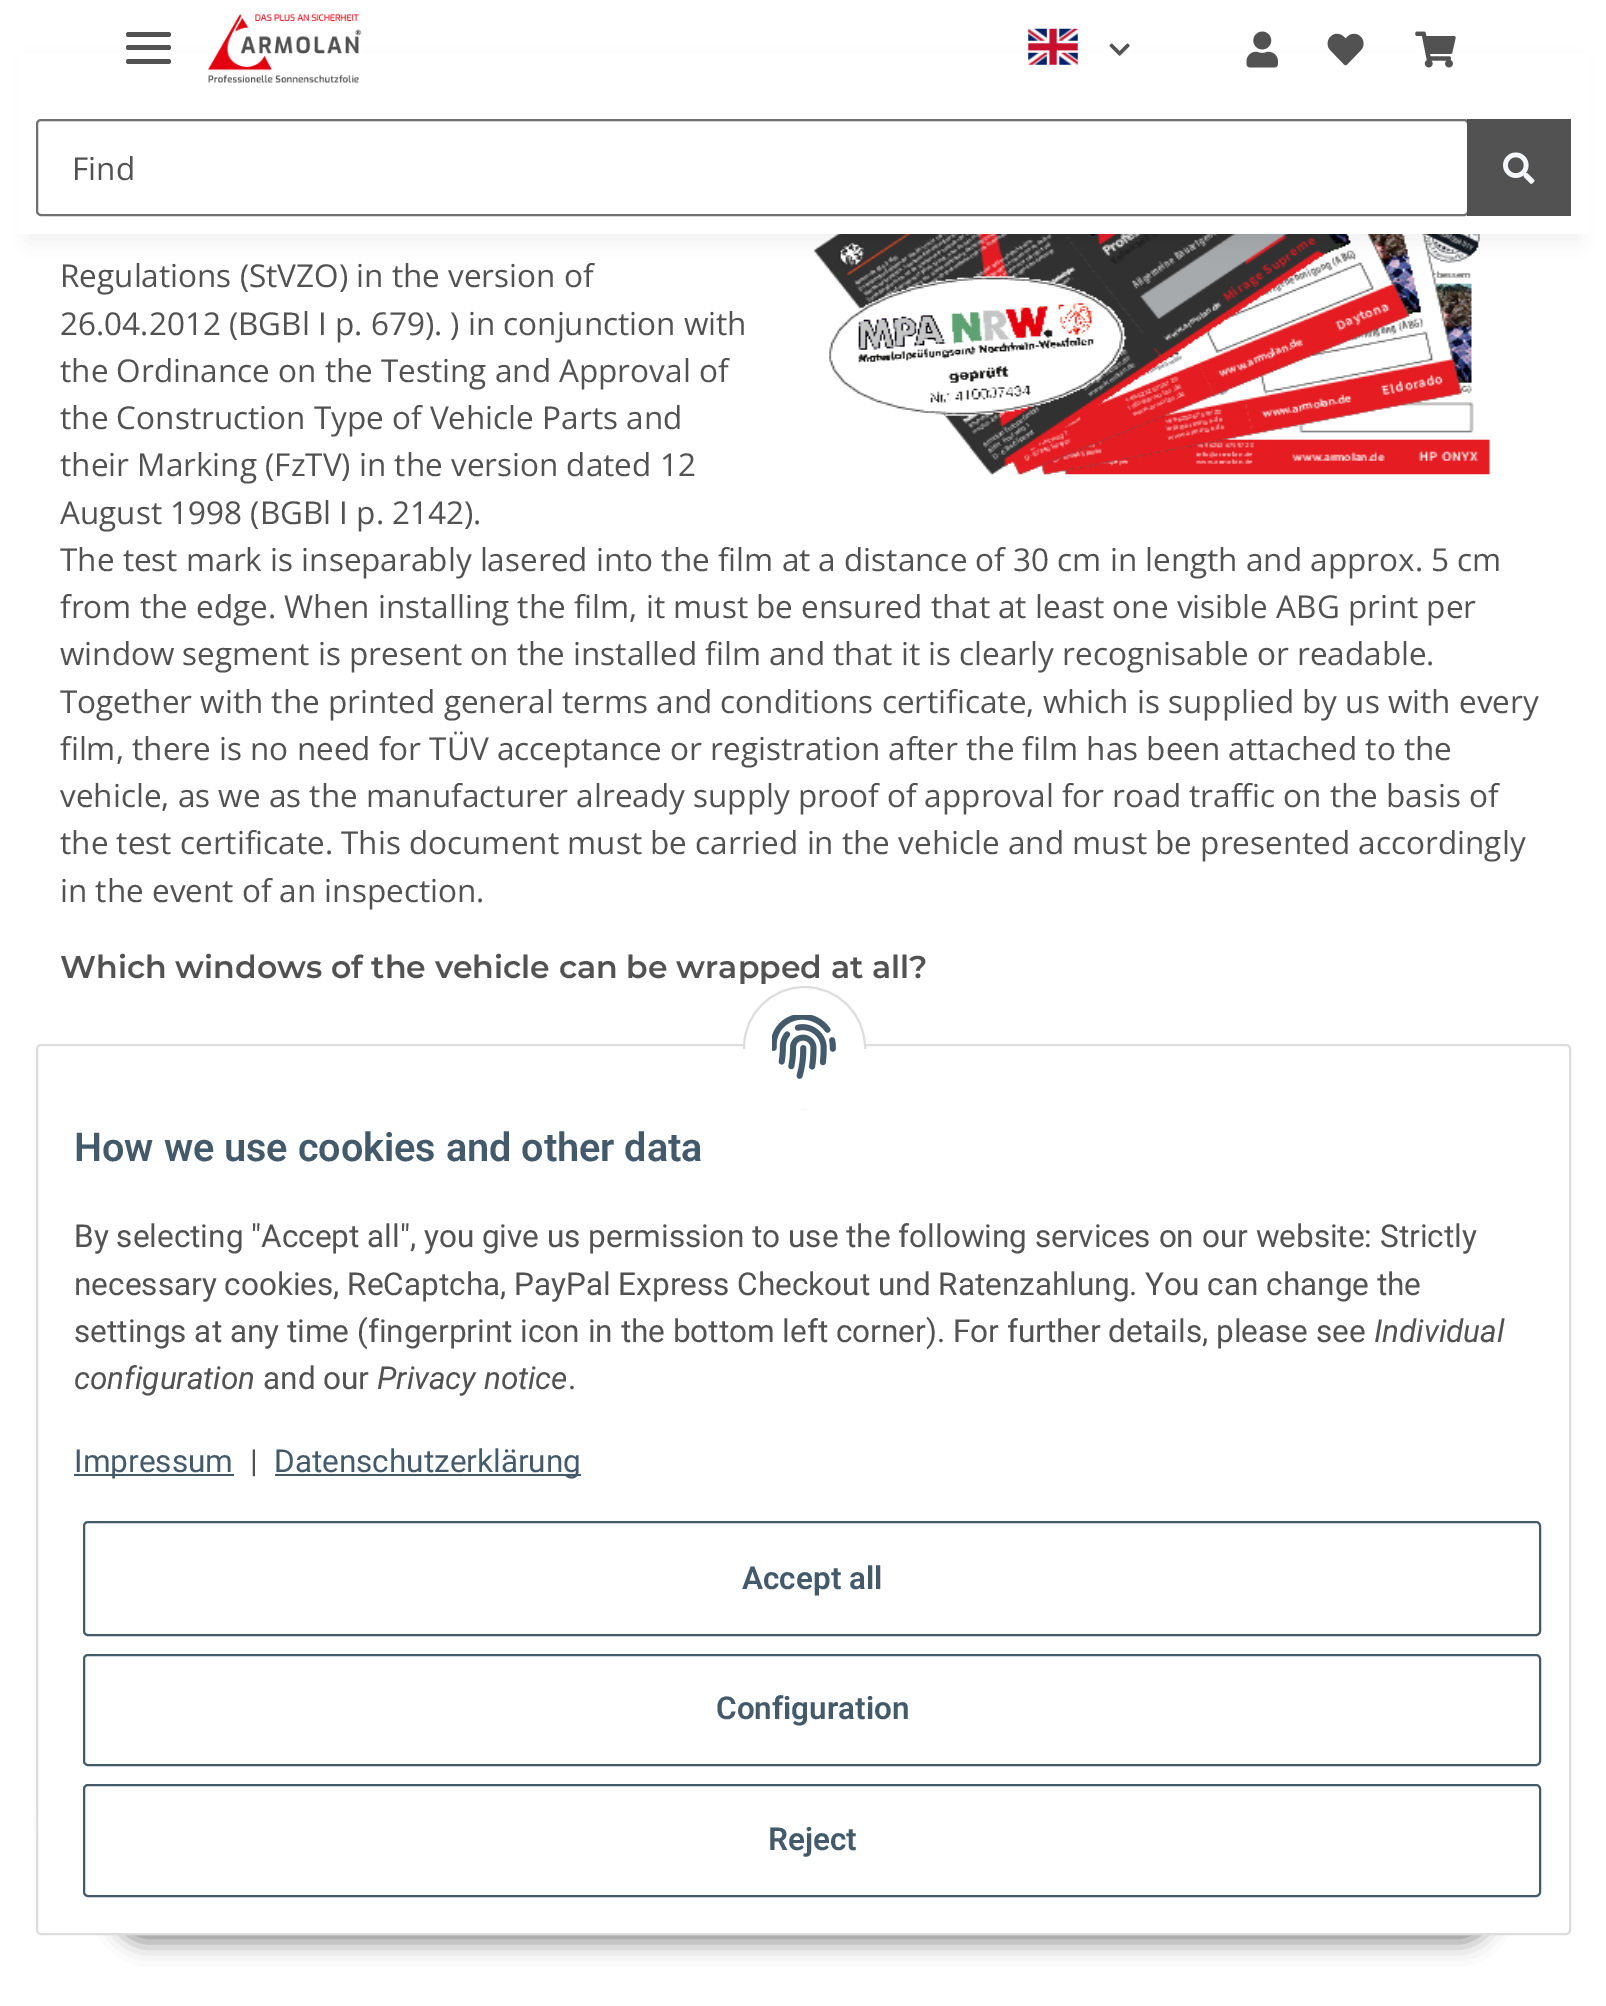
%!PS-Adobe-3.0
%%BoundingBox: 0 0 1606 2006
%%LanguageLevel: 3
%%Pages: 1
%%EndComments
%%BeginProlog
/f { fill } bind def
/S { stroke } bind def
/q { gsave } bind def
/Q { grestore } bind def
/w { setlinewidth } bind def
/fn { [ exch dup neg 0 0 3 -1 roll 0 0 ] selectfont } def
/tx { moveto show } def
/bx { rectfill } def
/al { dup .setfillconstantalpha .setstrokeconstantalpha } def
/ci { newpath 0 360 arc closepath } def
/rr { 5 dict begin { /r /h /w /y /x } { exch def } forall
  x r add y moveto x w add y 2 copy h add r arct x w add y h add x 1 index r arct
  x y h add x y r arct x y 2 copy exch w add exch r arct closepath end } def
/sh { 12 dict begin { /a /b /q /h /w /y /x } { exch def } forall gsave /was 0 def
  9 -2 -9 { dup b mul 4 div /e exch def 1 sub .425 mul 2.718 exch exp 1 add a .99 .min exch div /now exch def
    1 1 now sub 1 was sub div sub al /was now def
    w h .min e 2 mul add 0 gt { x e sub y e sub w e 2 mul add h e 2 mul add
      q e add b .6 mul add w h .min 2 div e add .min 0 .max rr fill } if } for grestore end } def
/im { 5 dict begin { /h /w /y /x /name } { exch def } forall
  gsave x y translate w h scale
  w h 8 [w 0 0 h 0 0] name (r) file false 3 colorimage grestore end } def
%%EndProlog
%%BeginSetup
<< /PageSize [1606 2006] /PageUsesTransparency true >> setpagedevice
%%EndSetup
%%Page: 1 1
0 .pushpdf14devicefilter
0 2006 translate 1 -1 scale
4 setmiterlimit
1 setgray
0 0 1606 2006 bx
(image7.raw) 814 234 676 241 im
0 setgray
27 63 1553 180 0 10 0.06 sh
1 setgray
17 53 1573 181 bx
0.322 setgray
126 45 45 5 2.5 rr f
126 32 45 5 2.5 rr f
126 59 45 5 2.5 rr f
(image0.raw) 208 13 154 70 im
(image1.raw) 1028 28 50 37 im
(image2.raw) 1109 43 21 13 im
(image3.raw) 1246 31 32 37 im
(image4.raw) 1327 33 37 33 im
(image5.raw) 1415 31 41 37 im
0.439 setgray
2 w
37 120 1431 95 4 rr S
/OpenSans-Regular 31.5 fn
0.322 setgray
(Find) 72 180 tx
1467 119 104 97 bx
(image6.raw) 1503 152 32 32 im
(Regulations \(StVZO\) in the version of) 60 287 tx
(26.04.2012 \(BGBl I p. 679\). \) in conjunction with) 60 335 tx
(the Ordinance on the Testing and Approval of) 60 382 tx
(the Construction Type of Vehicle Parts and) 60 429 tx
(their Marking \(FzTV\) in the version dated 12) 60 476 tx
(August 1998 \(BGBl I p. 2142\).) 60 524 tx
(The test mark is inseparably lasered into the film at a distance of 30 cm in length and approx. 5 cm) 60 571 tx
(from the edge. When installing the film, it must be ensured that at least one visible ABG print per) 60 618 tx
(window segment is present on the installed film and that it is clearly recognisable or readable.) 60 665 tx
(Together with the printed general terms and conditions certificate, which is supplied by us with every) 60 713 tx
(film, there is no need for TÜV acceptance or registration after the film has been attached to the) 60 760 tx
(vehicle, as we as the manufacturer already supply proof of approval for road traffic on the basis of) 60 807 tx
(the test certificate. This document must be carried in the vehicle and must be presented accordingly) 60 854 tx
(in the event of an inspection.) 60 902 tx
/Montserrat-SemiBold 31.5 fn
(Which windows of the vehicle can be wrapped at all?) 60 978 tx
0 setgray
115 1870 1377 72 36 11 0.45 sh
0.6 setgray
41 1778 90 90 45 3.5 1 sh
1 setgray
37 1045 1533 889 4 rr q f Q
0.867 setgray
S
1 setgray
804.5 1047.5 60.5 ci q f Q
0.867 setgray
S
1 setgray
743 1049 123 60 bx
(image8.raw) 772 1015 64 64 im
/Roboto-SemiBold 39.6 fn
0.263 0.353 0.42 setrgbcolor
(How we use cookies and other data) 74 1161 tx
/Roboto-Regular 31.5 fn
0.322 setgray
(By selecting "Accept all", you give us permission to use the following services on our website: Strictly) 74 1247 tx
(necessary cookies, ReCaptcha, PayPal Express Checkout und Ratenzahlung. You can change the) 74 1295 tx
(settings at any time \(fingerprint icon in the bottom left corner\). For further details, please see) 74 1342 tx
/Roboto-Italic 31.5 fn
(Individual) 1374 1342 tx
(configuration) 74 1389 tx
/Roboto-Regular 31.5 fn
(and our) 263 1389 tx
/Roboto-Italic 31.5 fn
(Privacy notice) 377 1389 tx
/Roboto-Regular 31.5 fn
(.) 568 1389 tx
0.263 0.353 0.42 setrgbcolor
74 1474 160 2 bx
(Impressum) 74 1472 tx
0.322 setgray
(|) 250 1472 tx
0.263 0.353 0.42 setrgbcolor
275 1474 306 2 bx
(Datenschutzerklärung) 274 1472 tx
84 1522 1456 113 4 rr S
/Roboto-SemiBold 31.5 fn
(Accept all) 742 1589 tx
84 1655 1456 110 4 rr S
(Configuration) 716 1719 tx
84 1785 1456 111 4 rr S
(Reject) 768 1850 tx
.poppdf14devicefilter showpage
%%EOF
